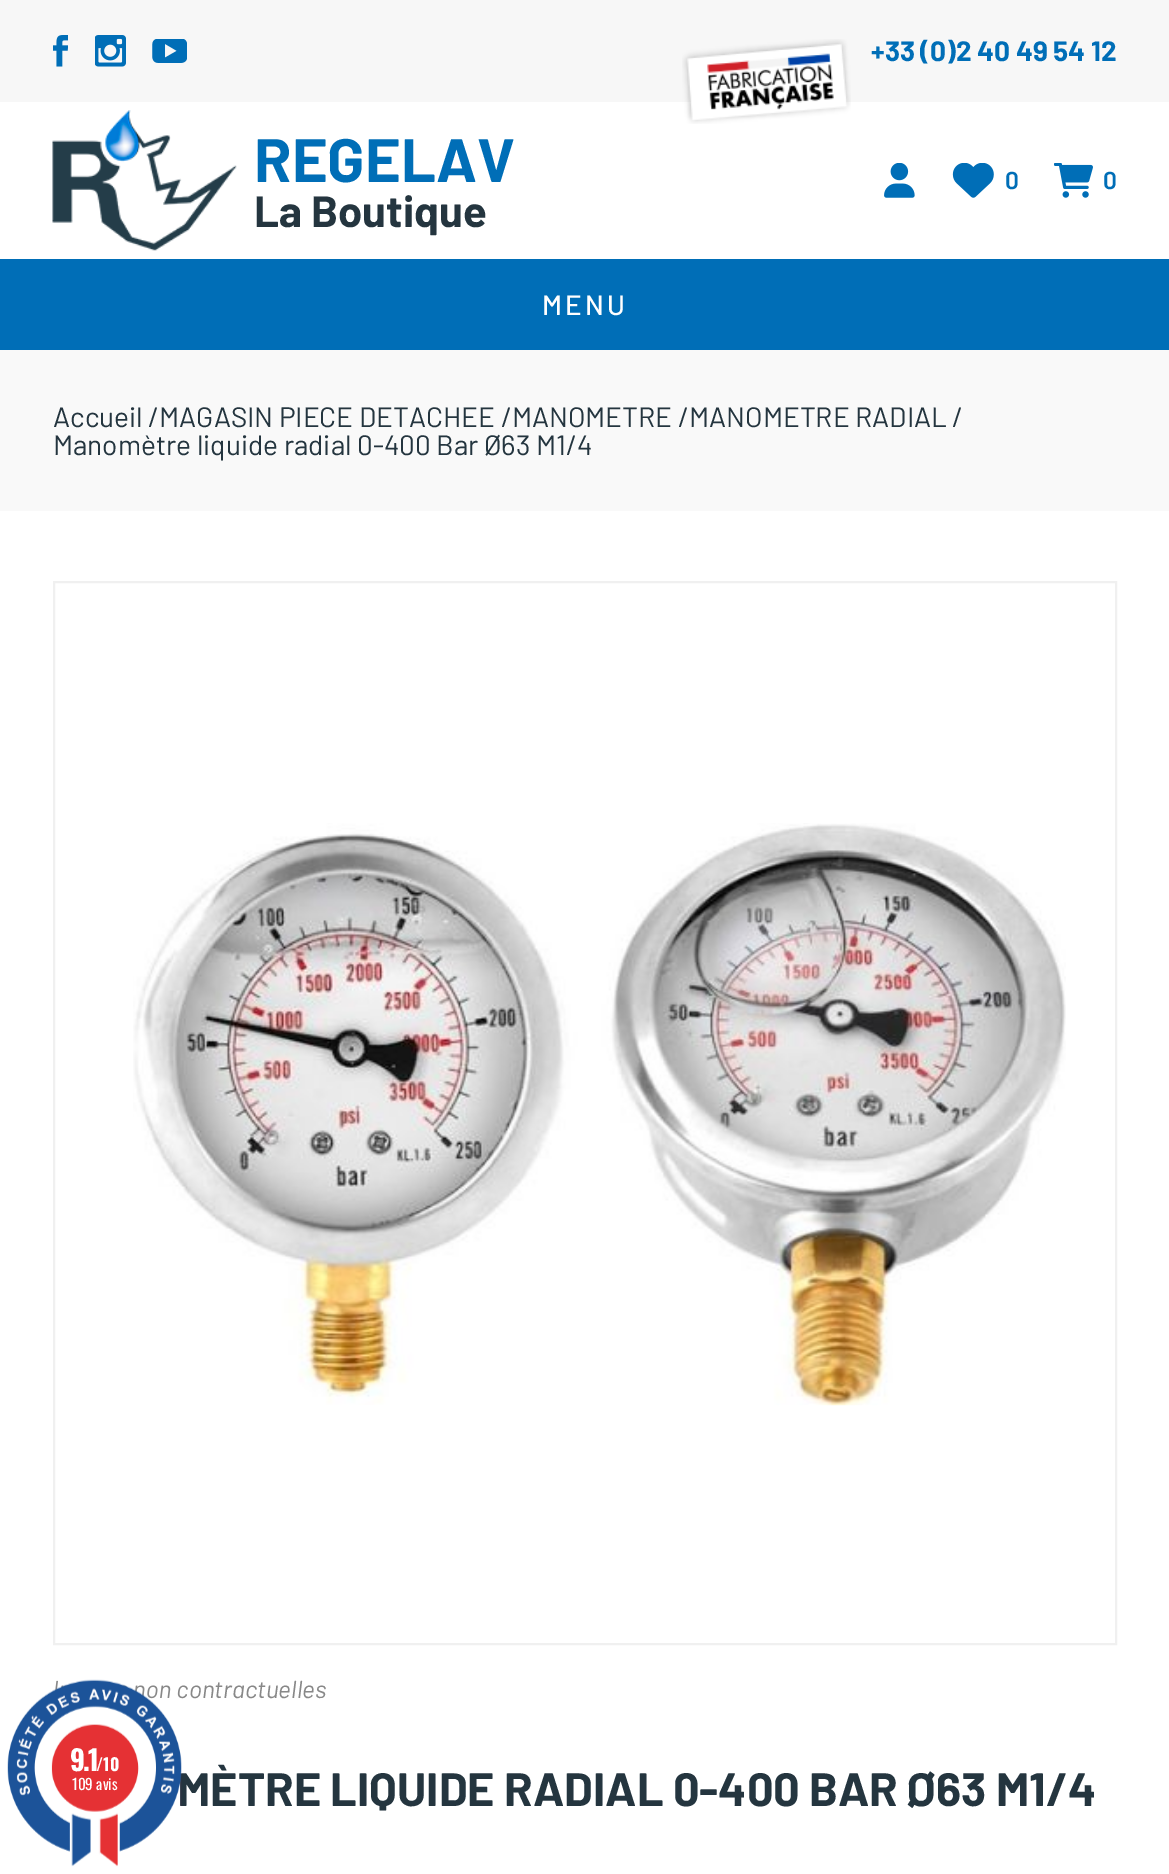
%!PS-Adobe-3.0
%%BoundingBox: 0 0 1169 1874
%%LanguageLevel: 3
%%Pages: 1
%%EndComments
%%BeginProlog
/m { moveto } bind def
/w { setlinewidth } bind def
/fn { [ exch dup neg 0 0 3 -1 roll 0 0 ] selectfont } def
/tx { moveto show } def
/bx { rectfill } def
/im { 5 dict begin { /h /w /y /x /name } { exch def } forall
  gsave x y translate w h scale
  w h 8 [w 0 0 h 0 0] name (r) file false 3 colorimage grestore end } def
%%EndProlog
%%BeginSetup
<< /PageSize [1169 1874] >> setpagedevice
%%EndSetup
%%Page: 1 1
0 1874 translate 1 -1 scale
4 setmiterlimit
1 setgray
0 0 1169 1874 bx
0.969 setgray
0 0 1169 102 bx
(image0.raw) 53 35 15 32 im
(image1.raw) 95 35 31 32 im
(image2.raw) 152 39 35 24 im
(image3.raw) 682 39 169 85 im
/Barlow-Bold 28 fn
0 0.431 0.718 setrgbcolor
(+33 \(0\)2 40 49 54 12) 871 61 tx
(image4.raw) 52 110 185 141 im
/Barlow-Bold 61.25 fn
(REGELAV) 254 182 tx
/Barlow-Bold 43.75 fn
0.141 0.208 0.247 setrgbcolor
(La Boutique) 254 227 tx
(image5.raw) 884 163 31 35 im
(image6.raw) 952 163 42 35 im
/Barlow-SemiBold 24.5 fn
0 0.431 0.718 setrgbcolor
(0) 1005 189 tx
(image7.raw) 1054 163 39 35 im
(0) 1103 189 tx
0 259 1169 91 bx
/Barlow-Medium 28 fn
1 setgray
542 315 m 3 0 (MENU) ashow
0.976 setgray
0 350 1169 161 bx
/Barlow-Regular 28 fn
0.141 0.208 0.247 setrgbcolor
(Accueil /MAGASIN PIECE DETACHEE /MANOMETRE /MANOMETRE RADIAL /) 53 427 tx
(Manomètre liquide radial 0-400 Bar Ø63 M1/4) 53 455 tx
0.941 setgray
2 w
54 582 1062 1062 rectstroke
(image8.raw) 133 823 933 583 im
/Barlow-Italic 24.5 fn
0.533 setgray
(non contractuelles) 133 1698 tx
/Barlow-Bold 46.7 fn
0.141 0.208 0.247 setrgbcolor
(MÈTRE LIQUIDE RADIAL 0-400 BAR Ø63 M1/4) 177 1806 tx
(image9.raw) 7 1679 175 188 im
/Oswald-Bold 28 fn
1 setgray
70 1771 m -2 0 (9.1) ashow
/Oswald-Bold 17 fn
(/10) 96 1771 tx
/Oswald-Regular 15 fn
(109 avis) 72 1790 tx
showpage
%%EOF
